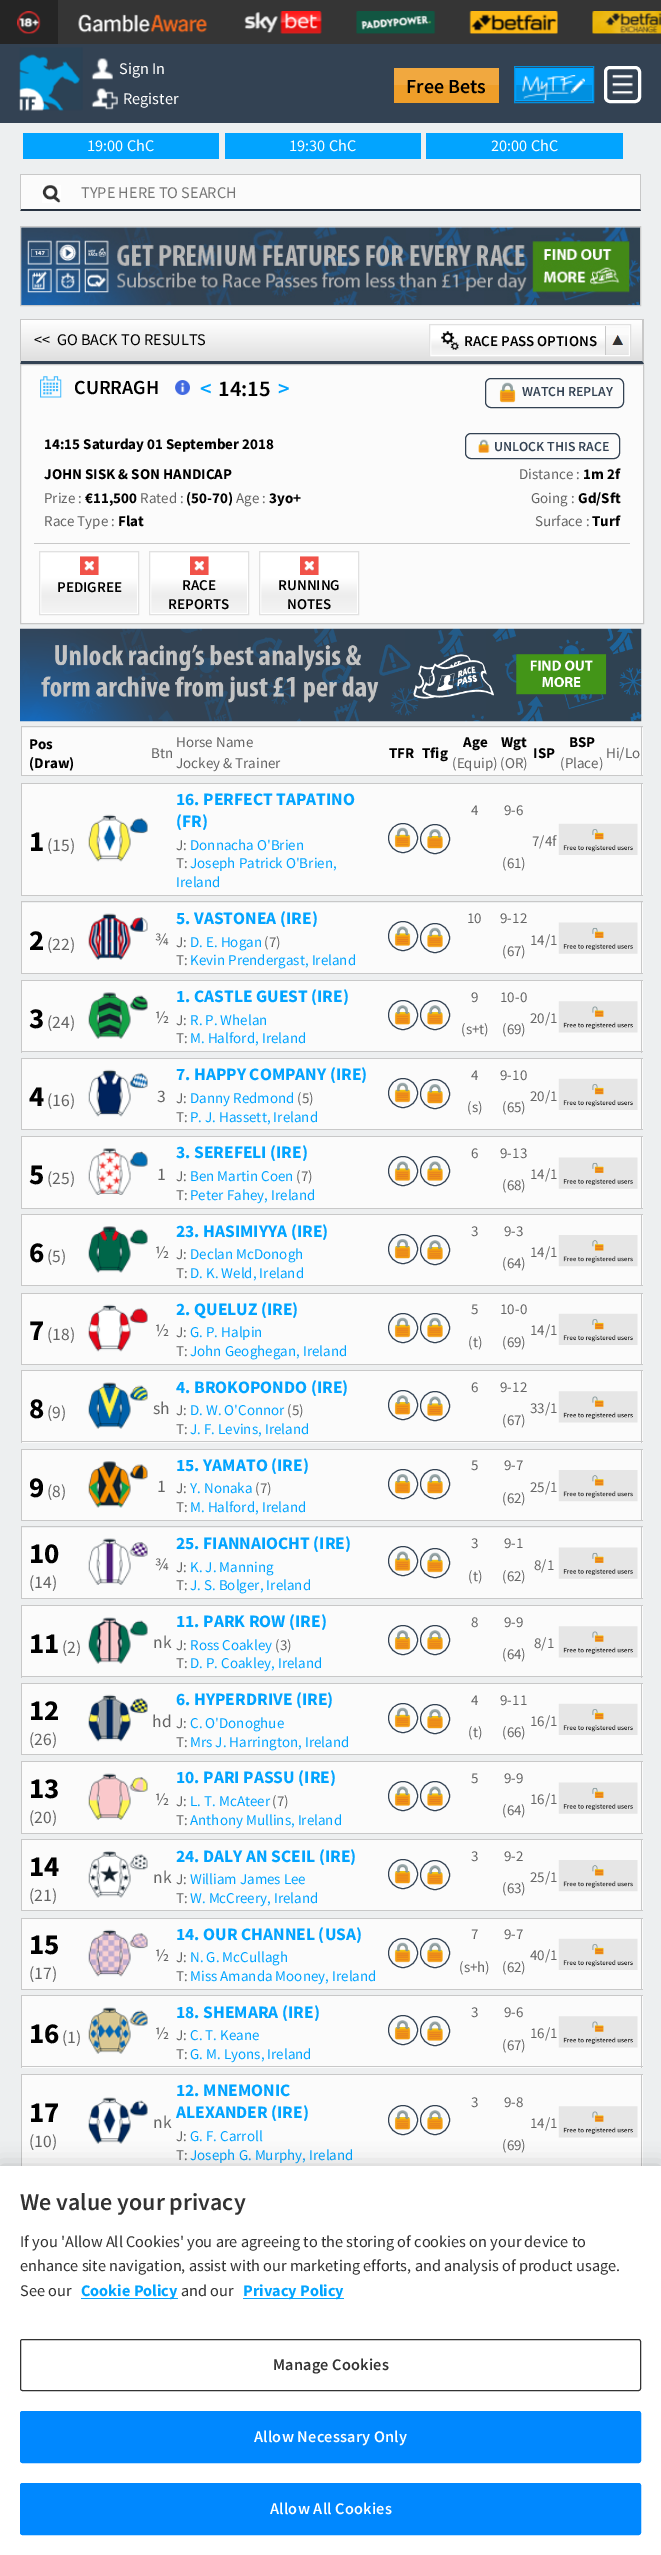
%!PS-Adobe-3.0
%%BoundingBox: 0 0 661 2555
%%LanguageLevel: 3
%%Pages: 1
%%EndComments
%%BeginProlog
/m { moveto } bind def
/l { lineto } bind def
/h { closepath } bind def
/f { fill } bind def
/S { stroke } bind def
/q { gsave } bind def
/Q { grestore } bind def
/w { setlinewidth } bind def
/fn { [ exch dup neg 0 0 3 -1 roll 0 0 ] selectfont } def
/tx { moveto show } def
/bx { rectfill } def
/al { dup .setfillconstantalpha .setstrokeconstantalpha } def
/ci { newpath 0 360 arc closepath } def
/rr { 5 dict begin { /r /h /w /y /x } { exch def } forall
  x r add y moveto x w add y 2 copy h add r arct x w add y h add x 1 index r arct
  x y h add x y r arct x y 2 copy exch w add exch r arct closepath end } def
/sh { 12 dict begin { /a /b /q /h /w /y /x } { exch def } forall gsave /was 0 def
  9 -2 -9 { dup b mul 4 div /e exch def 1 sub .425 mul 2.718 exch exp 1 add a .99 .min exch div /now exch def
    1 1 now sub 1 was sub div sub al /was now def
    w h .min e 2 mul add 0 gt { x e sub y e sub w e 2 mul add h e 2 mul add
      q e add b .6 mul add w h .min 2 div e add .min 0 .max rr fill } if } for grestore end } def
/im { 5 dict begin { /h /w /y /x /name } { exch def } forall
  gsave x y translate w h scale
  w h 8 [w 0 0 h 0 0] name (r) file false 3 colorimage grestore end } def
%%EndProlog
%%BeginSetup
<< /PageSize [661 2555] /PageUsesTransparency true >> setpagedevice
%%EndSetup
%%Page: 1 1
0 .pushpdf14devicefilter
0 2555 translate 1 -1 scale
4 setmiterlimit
0.929 0.937 0.941 setrgbcolor
0 0 661 2555 bx
0.208 setgray
58 0 603 44 bx
0.145 setgray
0 0 58 44 bx
(image0.raw) 17 11 24 23 im
(image1.raw) 78 14 129 19 im
(image2.raw) 244 11 78 23 im
(image3.raw) 356 11 80 23 im
(image4.raw) 469 11 89 23 im
(image5.raw) 592 11 69 23 im
0.2 0.259 0.325 setrgbcolor
0 44 661 79 bx
(image6.raw) 19 47 64 64 im
(image7.raw) 91 58 22 22 im
/SourceSansPro-Regular 16.25 fn
1 setgray
(Sign In) 119 74 tx
0.945 0.659 0.247 setrgbcolor
394 68 105 17 bx
0.937 0.62 0.161 setrgbcolor
394 85 105 18 bx
/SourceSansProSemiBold-SemiBold 20 fn
0 setgray
(Free Bets) 406 93 tx
0.008 0.643 1 setrgbcolor
516 69 76 16 bx
0.004 0.565 0.878 setrgbcolor
516 85 76 15 bx
0.008 0.643 1 setrgbcolor
515.5 68.5 77 32 rectstroke
(image8.raw) 522 75 63 25 im
0.004 0.565 0.878 setrgbcolor
514.5 66.5 79 36 rectstroke
(image9.raw) 91 88 27 22 im
/SourceSansPro-Regular 16.25 fn
1 setgray
(Register) 123 104 tx
3 w
605.5 67.5 34 34 4.5 rr S
(image10.raw) 612 74 21 21 im
0.008 0.643 1 setrgbcolor
23 133 196 26 bx
1 setgray
(19:00 ChC) 87 151 tx
0.008 0.643 1 setrgbcolor
225 133 196 26 bx
1 setgray
(19:30 ChC) 289 151 tx
0.008 0.643 1 setrgbcolor
426 133 197 26 bx
1 setgray
(20:00 ChC) 491 151 tx
0.984 setgray
21 175 619 34 bx
0.784 setgray
20 174 621 1 bx
641 174 m 641 211 l 640 209 l 640 175 l h f
0.153 0.196 0.251 setrgbcolor
641 211 m 20 211 l 21 209 l 640 209 l h f
0.784 setgray
20 211 m 20 174 l 21 175 l 21 209 l h f
(image11.raw) 42 185 19 18 im
0.459 setgray
(TYPE HERE TO SEARCH) 81 198 tx
0.784 setgray
1 w
20.5 226.5 620 79 rectstroke
(image12.raw) 21 227 619 78 im
q 21 320 m 642 320 l 642 361 l 21 361 l h clip newpath
<< /ShadingType 2 /ColorSpace /DeviceRGB /Coords [332 320 332 361] /Extend [true true] /Function << /FunctionType 2 /Domain [0 1] /C0 [1 1 1] /C1 [0.875 0.875 0.875] /N 1 >> >> shfill Q
20 319 624 1 bx
644 319 m 644 364 l 642 361 l 642 320 l h f
0.2 0.259 0.325 setrgbcolor
644 364 m 20 364 l 21 361 l 642 361 l h f
0.784 setgray
20 364 m 20 319 l 21 320 l 21 361 l h f
0 setgray
(<<  GO BACK TO RESULTS) 34 345 tx
q 431 326 m 605 326 l 605 355 l 431 355 l h clip newpath
<< /ShadingType 2 /ColorSpace /DeviceRGB /Coords [530 326 530 355] /Extend [true true] /Function << /FunctionType 3 /Domain [0 1] /Functions [<< /FunctionType 2 /Domain [0 1] /C0 [1 1 1] /C1 [1 1 1] /N 1 >> << /FunctionType 2 /Domain [0 1] /C0 [1 1 1] /C1 [0.929 0.929 0.929] /N 1 >> << /FunctionType 2 /Domain [0 1] /C0 [0.929 0.929 0.929] /C1 [0.957 0.957 0.957] /N 1 >>] /Bounds [0.4 0.7] /Encode [0 1 0 1 0 1] >> >> shfill Q
1 setgray
430.5 325.5 199 30 rectstroke
(image13.raw) 441 331 18 19 im
0.882 setgray
429.5 324.5 201 33 rectstroke
/SourceSansProSemiBold-SemiBold 15 fn
0 setgray
(RACE PASS OPTIONS) 464 346 tx
0.984 setgray
606 328 23 27 bx
(image14.raw) 606 335 23 20 im
0.784 setgray
605 326 1 29 bx
0.984 setgray
20.5 364.5 m 643.5 364.5 l 643.5 623.5 l 20.5 623.5 l h q f Q
0.784 setgray
S
(image15.raw) 40 376 22 22 im
/SourceSansProSemiBold-SemiBold 20 fn
0 setgray
(CURRAGH) 74 394 tx
(image16.raw) 175 380 15 15 im
/SourceSansProSemiBold-SemiBold 22.5 fn
0.008 0.643 1 setrgbcolor
(<) 200 396 tx
0 setgray
(14:15) 218 396 tx
0.008 0.643 1 setrgbcolor
(>) 278 396 tx
0.2 0.259 0.325 setrgbcolor
485.5 378.5 138 29 5.5 rr S
(image17.raw) 499 382 17 21 im
/SourceSansProSemiBold-SemiBold 13.75 fn
(WATCH REPLAY) 522 396 tx
/SourceSansPro-Bold 15 fn
0 setgray
(14:15 Saturday 01 September 2018) 44 449 tx
0.2 0.259 0.325 setrgbcolor
465.5 433.5 154 25 5.5 rr S
(image18.raw) 478 439 12 14 im
/SourceSansProSemiBold-SemiBold 13.75 fn
(UNLOCK THIS RACE) 494 451 tx
/SourceSansPro-Bold 15 fn
0 setgray
(JOHN SISK & SON HANDICAP) 44 479 tx
/SourceSansPro-Regular 15 fn
0.392 setgray
(Distance :) 519 479 tx
/SourceSansPro-Bold 15 fn
0 setgray
(1m 2f) 583 479 tx
/SourceSansPro-Regular 15 fn
0.392 setgray
(Prize :) 44 503 tx
/SourceSansPro-Bold 15 fn
0 setgray
(€11,500) 85 503 tx
/SourceSansPro-Regular 15 fn
0.392 setgray
(Rated :) 140 503 tx
/SourceSansPro-Bold 15 fn
0 setgray
(\(50-70\)) 186 503 tx
/SourceSansPro-Regular 15 fn
0.392 setgray
(Age :) 236 503 tx
/SourceSansPro-Bold 15 fn
0 setgray
(3yo+) 269 503 tx
/SourceSansPro-Regular 15 fn
0.392 setgray
(Going :) 531 503 tx
/SourceSansPro-Bold 15 fn
0 setgray
(Gd/Sft) 578 503 tx
/SourceSansPro-Regular 15 fn
0.392 setgray
(Race Type :) 44 526 tx
/SourceSansPro-Bold 15 fn
0 setgray
(Flat) 118 526 tx
/SourceSansPro-Regular 15 fn
0.392 setgray
(Surface :) 535 526 tx
/SourceSansPro-Bold 15 fn
0 setgray
(Turf) 592 526 tx
0.784 setgray
34 543 596 1 bx
q 41 554 m 137 554 l 137 613 l 41 613 l h clip newpath
<< /ShadingType 2 /ColorSpace /DeviceRGB /Coords [89 554 89 613] /Extend [true true] /Function << /FunctionType 3 /Domain [0 1] /Functions [<< /FunctionType 2 /Domain [0 1] /C0 [1 1 1] /C1 [1 1 1] /N 1 >> << /FunctionType 2 /Domain [0 1] /C0 [1 1 1] /C1 [0.929 0.929 0.929] /N 1 >> << /FunctionType 2 /Domain [0 1] /C0 [0.929 0.929 0.929] /C1 [0.957 0.957 0.957] /N 1 >>] /Bounds [0.4 0.7] /Encode [0 1 0 1 0 1] >> >> shfill Q
1 setgray
40.5 553.5 97 60 rectstroke
0.882 setgray
39.5 551.5 99 63 rectstroke
(image19.raw) 80 556 19 19 im
/SourceSansProSemiBold-SemiBold 15 fn
0 setgray
(PEDIGREE) 57 592 tx
q 151 554 m 247 554 l 247 613 l 151 613 l h clip newpath
<< /ShadingType 2 /ColorSpace /DeviceRGB /Coords [199 554 199 613] /Extend [true true] /Function << /FunctionType 3 /Domain [0 1] /Functions [<< /FunctionType 2 /Domain [0 1] /C0 [1 1 1] /C1 [1 1 1] /N 1 >> << /FunctionType 2 /Domain [0 1] /C0 [1 1 1] /C1 [0.929 0.929 0.929] /N 1 >> << /FunctionType 2 /Domain [0 1] /C0 [0.929 0.929 0.929] /C1 [0.957 0.957 0.957] /N 1 >>] /Bounds [0.4 0.7] /Encode [0 1 0 1 0 1] >> >> shfill Q
1 setgray
150.5 553.5 97 60 rectstroke
0.882 setgray
149.5 551.5 99 63 rectstroke
(image20.raw) 190 556 19 19 im
0 setgray
(RACE) 182 590 tx
(REPORTS) 168 609 tx
q 261 554 m 357 554 l 357 613 l 261 613 l h clip newpath
<< /ShadingType 2 /ColorSpace /DeviceRGB /Coords [309 554 309 613] /Extend [true true] /Function << /FunctionType 3 /Domain [0 1] /Functions [<< /FunctionType 2 /Domain [0 1] /C0 [1 1 1] /C1 [1 1 1] /N 1 >> << /FunctionType 2 /Domain [0 1] /C0 [1 1 1] /C1 [0.929 0.929 0.929] /N 1 >> << /FunctionType 2 /Domain [0 1] /C0 [0.929 0.929 0.929] /C1 [0.957 0.957 0.957] /N 1 >>] /Bounds [0.4 0.7] /Encode [0 1 0 1 0 1] >> >> shfill Q
1 setgray
260.5 553.5 97 60 rectstroke
0.882 setgray
259.5 551.5 99 63 rectstroke
(image19.raw) 300 556 19 19 im
0 setgray
(RUNNING) 278 590 tx
(NOTES) 287 609 tx
(image21.raw) 20 628 622 94 im
0.984 setgray
22 728 621 47 bx
0.784 setgray
21 726 622 1 bx
641 726 1 50 bx
21 775 622 1 bx
21 726 1 50 bx
/SourceSansPro-Bold 15 fn
0 setgray
(Pos) 29 749 tx
(\(Draw\)) 29 768 tx
/SourceSansPro-Regular 15 fn
0.392 setgray
(Btn) 151 758 tx
(Horse Name) 176 747 tx
/SourceSansPro-Bold 15 fn
0 setgray
(TFR) 389 758 tx
(Tfig) 422 758 tx
(Age) 463 747 tx
(Wgt) 501 747 tx
(ISP) 533 758 tx
(BSP) 569 747 tx
/SourceSansPro-Regular 15 fn
0.392 setgray
(Hi/Lo) 606 758 tx
(Jockey & Trainer) 176 768 tx
(\(Equip\)) 452 768 tx
(\(OR\)) 500 768 tx
(\(Place\)) 560 768 tx
0.984 setgray
22 784 621 111 bx
0.784 setgray
21 783 622 1 bx
641 783 1 113 bx
21 895 622 1 bx
21 783 1 113 bx
/SourceSansPro-Bold 17.5 fn
0.008 0.643 1 setrgbcolor
(16. PERFECT TAPATINO) 176 805 tx
(\(FR\)) 176 827 tx
/SourceSansPro-Regular 15 fn
0.392 setgray
(4) 471 815 tx
(9-6) 504 815 tx
/SourceSansPro-Bold 29 fn
0 setgray
(1) 29 851 tx
/SourceSansPro-Regular 17.5 fn
0.392 setgray
(\(15\)) 47 851 tx
(image22.raw) 88 814 60 48 im
0.2 0.259 0.325 setrgbcolor
403 838 14.5 ci S
(image23.raw) 394 827 17 21 im
435 839 14.5 ci S
(image24.raw) 427 829 16 20 im
/SourceSansPro-Regular 15 fn
0.392 setgray
(7/4f) 532 846 tx
(image25.raw) 558 823 80 32 im
(J:) 176 850 tx
0.008 0.643 1 setrgbcolor
(Donnacha O'Brien) 190 850 tx
0.392 setgray
(T:) 176 868 tx
0.008 0.643 1 setrgbcolor
(Joseph Patrick O'Brien,) 190 868 tx
(Ireland) 176 887 tx
0.392 setgray
(\(61\)) 502 868 tx
0.984 setgray
22 903 621 70 bx
0.784 setgray
21 901 622 1 bx
641 901 1 73 bx
21 973 622 1 bx
21 901 1 73 bx
(image26.raw) 88 913 60 47 im
/SourceSansPro-Bold 17.5 fn
0.008 0.643 1 setrgbcolor
(5. VASTONEA \(IRE\)) 176 924 tx
/SourceSansPro-Regular 15 fn
0.392 setgray
(10) 467 923 tx
(9-12) 500 923 tx
/SourceSansPro-Bold 29 fn
0 setgray
(2) 29 950 tx
/SourceSansPro-Regular 17.5 fn
0.392 setgray
(\(22\)) 47 950 tx
(¾) 155 945 tx
0.2 0.259 0.325 setrgbcolor
403 936 14.5 ci S
(image27.raw) 394 926 17 20 im
435 938 14.5 ci S
(image28.raw) 427 927 16 21 im
/SourceSansPro-Regular 15 fn
0.392 setgray
(14/1) 530 945 tx
(image29.raw) 558 922 80 32 im
(J:) 176 947 tx
0.008 0.643 1 setrgbcolor
(D. E. Hogan) 190 947 tx
0.392 setgray
(\(7\)) 264 947 tx
(T:) 176 965 tx
0.008 0.643 1 setrgbcolor
(Kevin Prendergast, Ireland) 190 965 tx
0.392 setgray
(\(67\)) 502 956 tx
0.984 setgray
22 981 621 70 bx
0.784 setgray
21 980 622 1 bx
641 980 1 73 bx
21 1051 622 1 bx
21 980 1 73 bx
(image30.raw) 88 992 60 47 im
/SourceSansPro-Bold 17.5 fn
0.008 0.643 1 setrgbcolor
(1. CASTLE GUEST \(IRE\)) 176 1002 tx
/SourceSansPro-Regular 15 fn
0.392 setgray
(9) 471 1002 tx
(10-0) 500 1002 tx
/SourceSansPro-Bold 29 fn
0 setgray
(3) 29 1028 tx
/SourceSansPro-Regular 17.5 fn
0.392 setgray
(\(24\)) 47 1028 tx
(½) 155 1023 tx
0.2 0.259 0.325 setrgbcolor
403 1015 14.5 ci S
(image31.raw) 394 1005 17 20 im
435 1015 14.5 ci S
(image32.raw) 427 1005 16 20 im
/SourceSansPro-Regular 15 fn
0.392 setgray
(20/1) 530 1023 tx
(image33.raw) 558 1001 80 32 im
(J:) 176 1025 tx
0.008 0.643 1 setrgbcolor
(R. P. Whelan) 190 1025 tx
0.392 setgray
(T:) 176 1043 tx
0.008 0.643 1 setrgbcolor
(M. Halford, Ireland) 190 1043 tx
0.392 setgray
(\(s+t\)) 461 1034 tx
(\(69\)) 502 1034 tx
0.984 setgray
22 1059 621 70 bx
0.784 setgray
21 1058 622 1 bx
641 1058 1 72 bx
21 1129 622 1 bx
21 1058 1 72 bx
(image34.raw) 88 1069 60 48 im
/SourceSansPro-Bold 17.5 fn
0.008 0.643 1 setrgbcolor
(7. HAPPY COMPANY \(IRE\)) 176 1080 tx
/SourceSansPro-Regular 15 fn
0.392 setgray
(4) 471 1080 tx
(9-10) 500 1080 tx
/SourceSansPro-Bold 29 fn
0 setgray
(4) 29 1106 tx
/SourceSansPro-Regular 17.5 fn
0.392 setgray
(\(16\)) 47 1106 tx
(3) 157 1102 tx
0.2 0.259 0.325 setrgbcolor
403 1093 14.5 ci S
(image23.raw) 394 1082 17 21 im
435 1094 14.5 ci S
(image24.raw) 427 1084 16 20 im
/SourceSansPro-Regular 15 fn
0.392 setgray
(20/1) 530 1101 tx
(image25.raw) 558 1078 80 32 im
(J:) 176 1103 tx
0.008 0.643 1 setrgbcolor
(Danny Redmond) 190 1103 tx
0.392 setgray
(\(5\)) 297 1103 tx
(T:) 176 1122 tx
0.008 0.643 1 setrgbcolor
(P. J. Hassett, Ireland) 190 1122 tx
0.392 setgray
(\(s\)) 467 1112 tx
(\(65\)) 502 1112 tx
0.984 setgray
22 1137 621 71 bx
0.784 setgray
21 1136 622 1 bx
641 1136 1 73 bx
21 1208 622 1 bx
21 1136 1 73 bx
(image35.raw) 88 1148 60 47 im
/SourceSansPro-Bold 17.5 fn
0.008 0.643 1 setrgbcolor
(3. SEREFELI \(IRE\)) 176 1158 tx
/SourceSansPro-Regular 15 fn
0.392 setgray
(6) 471 1158 tx
(9-13) 500 1158 tx
/SourceSansPro-Bold 29 fn
0 setgray
(5) 29 1184 tx
/SourceSansPro-Regular 17.5 fn
0.392 setgray
(\(25\)) 47 1184 tx
(1) 157 1180 tx
0.2 0.259 0.325 setrgbcolor
403 1171 14.5 ci S
(image27.raw) 394 1161 17 20 im
435 1171 14.5 ci S
(image36.raw) 427 1161 16 20 im
/SourceSansPro-Regular 15 fn
0.392 setgray
(14/1) 530 1179 tx
(image29.raw) 558 1157 80 32 im
(J:) 176 1181 tx
0.008 0.643 1 setrgbcolor
(Ben Martin Coen) 190 1181 tx
0.392 setgray
(\(7\)) 296 1181 tx
(T:) 176 1200 tx
0.008 0.643 1 setrgbcolor
(Peter Fahey, Ireland) 190 1200 tx
0.392 setgray
(\(68\)) 502 1190 tx
0.984 setgray
22 1215 621 70 bx
0.784 setgray
21 1214 622 1 bx
641 1214 1 72 bx
21 1285 622 1 bx
21 1214 1 72 bx
(image37.raw) 88 1226 60 47 im
/SourceSansPro-Bold 17.5 fn
0.008 0.643 1 setrgbcolor
(23. HASIMIYYA \(IRE\)) 176 1237 tx
/SourceSansPro-Regular 15 fn
0.392 setgray
(3) 471 1236 tx
(9-3) 504 1236 tx
/SourceSansPro-Bold 29 fn
0 setgray
(6) 29 1262 tx
/SourceSansPro-Regular 17.5 fn
0.392 setgray
(\(5\)) 47 1262 tx
(½) 155 1258 tx
0.2 0.259 0.325 setrgbcolor
403 1249 14.5 ci S
(image38.raw) 394 1239 17 20 im
435 1250 14.5 ci S
(image32.raw) 427 1240 16 20 im
/SourceSansPro-Regular 15 fn
0.392 setgray
(14/1) 530 1257 tx
(image39.raw) 558 1235 80 32 im
(J:) 176 1259 tx
0.008 0.643 1 setrgbcolor
(Declan McDonogh) 190 1259 tx
0.392 setgray
(T:) 176 1278 tx
0.008 0.643 1 setrgbcolor
(D. K. Weld, Ireland) 190 1278 tx
0.392 setgray
(\(64\)) 502 1268 tx
0.984 setgray
22 1294 621 70 bx
0.784 setgray
21 1293 622 1 bx
641 1293 1 72 bx
21 1364 622 1 bx
21 1293 1 72 bx
(image40.raw) 88 1304 60 48 im
/SourceSansPro-Bold 17.5 fn
0.008 0.643 1 setrgbcolor
(2. QUELUZ \(IRE\)) 176 1315 tx
/SourceSansPro-Regular 15 fn
0.392 setgray
(5) 471 1314 tx
(10-0) 500 1314 tx
/SourceSansPro-Bold 29 fn
0 setgray
(7) 29 1340 tx
/SourceSansPro-Regular 17.5 fn
0.392 setgray
(\(18\)) 47 1340 tx
(½) 155 1336 tx
0.2 0.259 0.325 setrgbcolor
403 1328 14.5 ci S
(image23.raw) 394 1317 17 21 im
435 1328 14.5 ci S
(image28.raw) 427 1317 16 21 im
/SourceSansPro-Regular 15 fn
0.392 setgray
(14/1) 530 1335 tx
(image25.raw) 558 1313 80 32 im
(J:) 176 1337 tx
0.008 0.643 1 setrgbcolor
(G. P. Halpin) 190 1337 tx
0.392 setgray
(T:) 176 1356 tx
0.008 0.643 1 setrgbcolor
(John Geoghegan, Ireland) 190 1356 tx
0.392 setgray
(\(t\)) 468 1347 tx
(\(69\)) 502 1347 tx
0.984 setgray
22 1371 621 72 bx
0.784 setgray
21 1370 622 1 bx
641 1370 1 73 bx
21 1441 622 1 bx
21 1370 1 73 bx
(image41.raw) 88 1382 60 47 im
/SourceSansPro-Bold 17.5 fn
0.008 0.643 1 setrgbcolor
(4. BROKOPONDO \(IRE\)) 176 1393 tx
/SourceSansPro-Regular 15 fn
0.392 setgray
(6) 471 1392 tx
(9-12) 500 1392 tx
/SourceSansPro-Bold 29 fn
0 setgray
(8) 29 1418 tx
/SourceSansPro-Regular 17.5 fn
0.392 setgray
(\(9\)) 47 1418 tx
(sh) 153 1414 tx
0.2 0.259 0.325 setrgbcolor
403 1405 14.5 ci S
(image31.raw) 394 1395 17 20 im
435 1406 14.5 ci S
(image36.raw) 427 1396 16 20 im
/SourceSansPro-Regular 15 fn
0.392 setgray
(33/1) 530 1413 tx
(image33.raw) 558 1391 80 32 im
(J:) 176 1415 tx
0.008 0.643 1 setrgbcolor
(D. W. O'Connor) 190 1415 tx
0.392 setgray
(\(5\)) 287 1415 tx
(T:) 176 1434 tx
0.008 0.643 1 setrgbcolor
(J. F. Levins, Ireland) 190 1434 tx
0.392 setgray
(\(67\)) 502 1425 tx
0.984 setgray
22 1450 621 70 bx
0.784 setgray
21 1449 622 1 bx
641 1449 1 72 bx
21 1520 622 1 bx
21 1449 1 72 bx
/SourceSansPro-Bold 29 fn
0 setgray
(9) 29 1497 tx
/SourceSansPro-Regular 17.5 fn
0.392 setgray
(\(8\)) 47 1497 tx
(image42.raw) 88 1461 60 47 im
(1) 157 1492 tx
/SourceSansPro-Bold 17.5 fn
0.008 0.643 1 setrgbcolor
(15. YAMATO \(IRE\)) 176 1471 tx
0.2 0.259 0.325 setrgbcolor
403 1484 14.5 ci S
(image38.raw) 394 1474 17 20 im
435 1484 14.5 ci S
(image24.raw) 427 1474 16 20 im
/SourceSansPro-Regular 15 fn
0.392 setgray
(5) 471 1470 tx
(9-7) 504 1470 tx
(25/1) 530 1492 tx
(image39.raw) 558 1470 80 32 im
(J:) 176 1493 tx
0.008 0.643 1 setrgbcolor
(Y. Nonaka) 190 1493 tx
0.392 setgray
(\(7\)) 255 1493 tx
(T:) 176 1512 tx
0.008 0.643 1 setrgbcolor
(M. Halford, Ireland) 190 1512 tx
0.392 setgray
(\(62\)) 502 1503 tx
0.984 setgray
22 1528 621 70 bx
0.784 setgray
21 1526 622 1 bx
641 1526 1 73 bx
21 1598 622 1 bx
21 1526 1 73 bx
/SourceSansPro-Bold 29 fn
0 setgray
(10) 29 1563 tx
/SourceSansPro-Regular 17.5 fn
0.392 setgray
(\(14\)) 29 1588 tx
(image43.raw) 88 1538 60 47 im
(¾) 155 1570 tx
/SourceSansPro-Bold 17.5 fn
0.008 0.643 1 setrgbcolor
(25. FIANNAIOCHT \(IRE\)) 176 1549 tx
0.2 0.259 0.325 setrgbcolor
403 1561 14.5 ci S
(image27.raw) 394 1551 17 20 im
435 1563 14.5 ci S
(image28.raw) 427 1552 16 21 im
/SourceSansPro-Regular 15 fn
0.392 setgray
(3) 471 1548 tx
(9-1) 504 1548 tx
(8/1) 534 1570 tx
(image29.raw) 558 1547 80 32 im
(J:) 176 1572 tx
0.008 0.643 1 setrgbcolor
(K. J. Manning) 190 1572 tx
0.392 setgray
(T:) 176 1590 tx
0.008 0.643 1 setrgbcolor
(J. S. Bolger, Ireland) 190 1590 tx
0.392 setgray
(\(t\)) 468 1581 tx
(\(62\)) 502 1581 tx
0.984 setgray
22 1606 621 70 bx
0.784 setgray
21 1605 622 1 bx
641 1605 1 73 bx
21 1676 622 1 bx
21 1605 1 73 bx
(image44.raw) 88 1617 60 47 im
/SourceSansPro-Bold 17.5 fn
0.008 0.643 1 setrgbcolor
(11. PARK ROW \(IRE\)) 176 1627 tx
/SourceSansPro-Regular 15 fn
0.392 setgray
(8) 471 1627 tx
(9-9) 504 1627 tx
/SourceSansPro-Bold 29 fn
0 setgray
(11) 29 1653 tx
/SourceSansPro-Regular 17.5 fn
0.392 setgray
(\(2\)) 62 1653 tx
(nk) 153 1648 tx
0.2 0.259 0.325 setrgbcolor
403 1640 14.5 ci S
(image31.raw) 394 1630 17 20 im
435 1640 14.5 ci S
(image32.raw) 427 1630 16 20 im
/SourceSansPro-Regular 15 fn
0.392 setgray
(8/1) 534 1648 tx
(image33.raw) 558 1626 80 32 im
(J:) 176 1650 tx
0.008 0.643 1 setrgbcolor
(Ross Coakley) 190 1650 tx
0.392 setgray
(\(3\)) 275 1650 tx
(T:) 176 1668 tx
0.008 0.643 1 setrgbcolor
(D. P. Coakley, Ireland) 190 1668 tx
0.392 setgray
(\(64\)) 502 1659 tx
0.984 setgray
22 1684 621 70 bx
0.784 setgray
21 1683 622 1 bx
641 1683 1 72 bx
21 1754 622 1 bx
21 1683 1 72 bx
/SourceSansPro-Bold 29 fn
0 setgray
(12) 29 1720 tx
/SourceSansPro-Regular 17.5 fn
0.392 setgray
(\(26\)) 29 1745 tx
(image45.raw) 88 1694 60 48 im
(hd) 152 1727 tx
/SourceSansPro-Bold 17.5 fn
0.008 0.643 1 setrgbcolor
(6. HYPERDRIVE \(IRE\)) 176 1705 tx
0.2 0.259 0.325 setrgbcolor
403 1718 14.5 ci S
(image23.raw) 394 1707 17 21 im
435 1719 14.5 ci S
(image24.raw) 427 1709 16 20 im
/SourceSansPro-Regular 15 fn
0.392 setgray
(4) 471 1705 tx
(9-11) 500 1705 tx
(16/1) 530 1726 tx
(image25.raw) 558 1703 80 32 im
(J:) 176 1728 tx
0.008 0.643 1 setrgbcolor
(C. O'Donoghue) 190 1728 tx
0.392 setgray
(T:) 176 1747 tx
0.008 0.643 1 setrgbcolor
(Mrs J. Harrington, Ireland) 190 1747 tx
0.392 setgray
(\(t\)) 468 1737 tx
(\(66\)) 502 1737 tx
0.984 setgray
22 1762 621 71 bx
0.784 setgray
21 1761 622 1 bx
641 1761 1 73 bx
21 1833 622 1 bx
21 1761 1 73 bx
/SourceSansPro-Bold 29 fn
0 setgray
(13) 29 1798 tx
/SourceSansPro-Regular 17.5 fn
0.392 setgray
(\(20\)) 29 1823 tx
(image46.raw) 88 1773 60 47 im
(½) 155 1805 tx
/SourceSansPro-Bold 17.5 fn
0.008 0.643 1 setrgbcolor
(10. PARI PASSU \(IRE\)) 176 1783 tx
0.2 0.259 0.325 setrgbcolor
403 1796 14.5 ci S
(image27.raw) 394 1786 17 20 im
435 1796 14.5 ci S
(image36.raw) 427 1786 16 20 im
/SourceSansPro-Regular 15 fn
0.392 setgray
(5) 471 1783 tx
(9-9) 504 1783 tx
(16/1) 530 1804 tx
(image29.raw) 558 1782 80 32 im
(J:) 176 1806 tx
0.008 0.643 1 setrgbcolor
(L. T. McAteer) 190 1806 tx
0.392 setgray
(\(7\)) 272 1806 tx
(T:) 176 1825 tx
0.008 0.643 1 setrgbcolor
(Anthony Mullins, Ireland) 190 1825 tx
0.392 setgray
(\(64\)) 502 1815 tx
0.984 setgray
22 1840 621 70 bx
0.784 setgray
21 1839 622 1 bx
641 1839 1 72 bx
21 1910 622 1 bx
21 1839 1 72 bx
/SourceSansPro-Bold 29 fn
0 setgray
(14) 29 1876 tx
/SourceSansPro-Regular 17.5 fn
0.392 setgray
(\(21\)) 29 1901 tx
(image47.raw) 88 1851 60 47 im
(nk) 153 1883 tx
/SourceSansPro-Bold 17.5 fn
0.008 0.643 1 setrgbcolor
(24. DALY AN SCEIL \(IRE\)) 176 1862 tx
0.2 0.259 0.325 setrgbcolor
403 1874 14.5 ci S
(image38.raw) 394 1864 17 20 im
435 1875 14.5 ci S
(image32.raw) 427 1865 16 20 im
/SourceSansPro-Regular 15 fn
0.392 setgray
(3) 471 1861 tx
(9-2) 504 1861 tx
(25/1) 530 1882 tx
(image39.raw) 558 1860 80 32 im
(J:) 176 1884 tx
0.008 0.643 1 setrgbcolor
(William James Lee) 190 1884 tx
0.392 setgray
(T:) 176 1903 tx
0.008 0.643 1 setrgbcolor
(W. McCreery, Ireland) 190 1903 tx
0.392 setgray
(\(63\)) 502 1893 tx
0.984 setgray
22 1919 621 70 bx
0.784 setgray
21 1918 622 1 bx
641 1918 1 72 bx
21 1989 622 1 bx
21 1918 1 72 bx
/SourceSansPro-Bold 29 fn
0 setgray
(15) 29 1954 tx
/SourceSansPro-Regular 17.5 fn
0.392 setgray
(\(17\)) 29 1979 tx
(image48.raw) 88 1929 60 48 im
(½) 155 1961 tx
/SourceSansPro-Bold 17.5 fn
0.008 0.643 1 setrgbcolor
(14. OUR CHANNEL \(USA\)) 176 1940 tx
0.2 0.259 0.325 setrgbcolor
403 1953 14.5 ci S
(image23.raw) 394 1942 17 21 im
435 1953 14.5 ci S
(image28.raw) 427 1942 16 21 im
/SourceSansPro-Regular 15 fn
0.392 setgray
(7) 471 1939 tx
(9-7) 504 1939 tx
(40/1) 530 1960 tx
(image25.raw) 558 1938 80 32 im
(J:) 176 1962 tx
0.008 0.643 1 setrgbcolor
(N. G. McCullagh) 190 1962 tx
0.392 setgray
(T:) 176 1981 tx
0.008 0.643 1 setrgbcolor
(Miss Amanda Mooney, Ireland) 190 1981 tx
0.392 setgray
(\(s+h\)) 459 1972 tx
(\(62\)) 502 1972 tx
0.984 setgray
22 1996 621 72 bx
0.784 setgray
21 1995 622 1 bx
641 1995 1 73 bx
21 2066 622 1 bx
21 1995 1 73 bx
(image49.raw) 88 2007 60 47 im
/SourceSansPro-Bold 17.5 fn
0.008 0.643 1 setrgbcolor
(18. SHEMARA \(IRE\)) 176 2018 tx
/SourceSansPro-Regular 15 fn
0.392 setgray
(3) 471 2017 tx
(9-6) 504 2017 tx
/SourceSansPro-Bold 29 fn
0 setgray
(16) 29 2043 tx
/SourceSansPro-Regular 17.5 fn
0.392 setgray
(\(1\)) 62 2043 tx
(½) 155 2039 tx
0.2 0.259 0.325 setrgbcolor
403 2030 14.5 ci S
(image31.raw) 394 2020 17 20 im
435 2031 14.5 ci S
(image36.raw) 427 2021 16 20 im
/SourceSansPro-Regular 15 fn
0.392 setgray
(16/1) 530 2038 tx
(image33.raw) 558 2016 80 32 im
(J:) 176 2040 tx
0.008 0.643 1 setrgbcolor
(C. T. Keane) 190 2040 tx
0.392 setgray
(T:) 176 2059 tx
0.008 0.643 1 setrgbcolor
(G. M. Lyons, Ireland) 190 2059 tx
0.392 setgray
(\(67\)) 502 2050 tx
0.984 setgray
22 2075 621 91 bx
0.784 setgray
21 2074 622 1 bx
641 2074 1 95 bx
21 2074 1 95 bx
/SourceSansPro-Bold 29 fn
0 setgray
(17) 29 2122 tx
/SourceSansPro-Regular 17.5 fn
0.392 setgray
(\(10\)) 29 2147 tx
(image50.raw) 88 2097 60 47 im
(nk) 153 2128 tx
/SourceSansPro-Bold 17.5 fn
0.008 0.643 1 setrgbcolor
(12. MNEMONIC) 176 2096 tx
(ALEXANDER \(IRE\)) 176 2118 tx
0.2 0.259 0.325 setrgbcolor
403 2120 14.5 ci S
(image31.raw) 394 2110 17 20 im
435 2120 14.5 ci S
(image32.raw) 427 2110 16 20 im
/SourceSansPro-Regular 15 fn
0.392 setgray
(3) 471 2107 tx
(9-8) 504 2107 tx
(14/1) 530 2128 tx
(image33.raw) 558 2106 80 32 im
(J:) 176 2141 tx
0.008 0.643 1 setrgbcolor
(G. F. Carroll) 190 2141 tx
0.392 setgray
(T:) 176 2160 tx
0.008 0.643 1 setrgbcolor
(Joseph G. Murphy, Ireland) 190 2160 tx
0.392 setgray
(\(69\)) 502 2150 tx
0 setgray
0 2166 661 389 0 11 0.2 sh
1 setgray
0 2166 661 389 bx
/SourceSansProSemiBold-SemiBold 24 fn
0.196 setgray
(We value your privacy) 20 2210 tx
/SourceSansPro-Regular 16.25 fn
(If you 'Allow All Cookies' you are agreeing to the storing of cookies on your device to) 20 2247 tx
(enhance site navigation, assist with our marketing efforts, and analysis of product usage.) 20 2271 tx
(See our) 20 2296 tx
0.008 0.643 1 setrgbcolor
81 2298 97 1 bx
/SourceSansPro-Bold 16.25 fn
(Cookie Policy) 81 2296 tx
/SourceSansPro-Regular 16.25 fn
0.196 setgray
(and our) 181 2296 tx
0.008 0.643 1 setrgbcolor
243 2298 101 1 bx
/SourceSansPro-Bold 16.25 fn
(Privacy Policy) 243 2296 tx
0.196 setgray
20.5 2339.5 620 51 2 rr S
/SourceSansProSemiBold-SemiBold 16.25 fn
273 2370 m 0.2 0 (Manage Cookies) ashow
0 0.533 1 setrgbcolor
20.5 2411.5 620 51 2 rr q f Q
S
1 setgray
254 2442 m 0.2 0 (Allow Necessary Only) ashow
0 0.533 1 setrgbcolor
20.5 2483.5 620 51 2 rr q f Q
S
1 setgray
270 2514 m 0.2 0 (Allow All Cookies) ashow
.poppdf14devicefilter showpage
%%EOF
